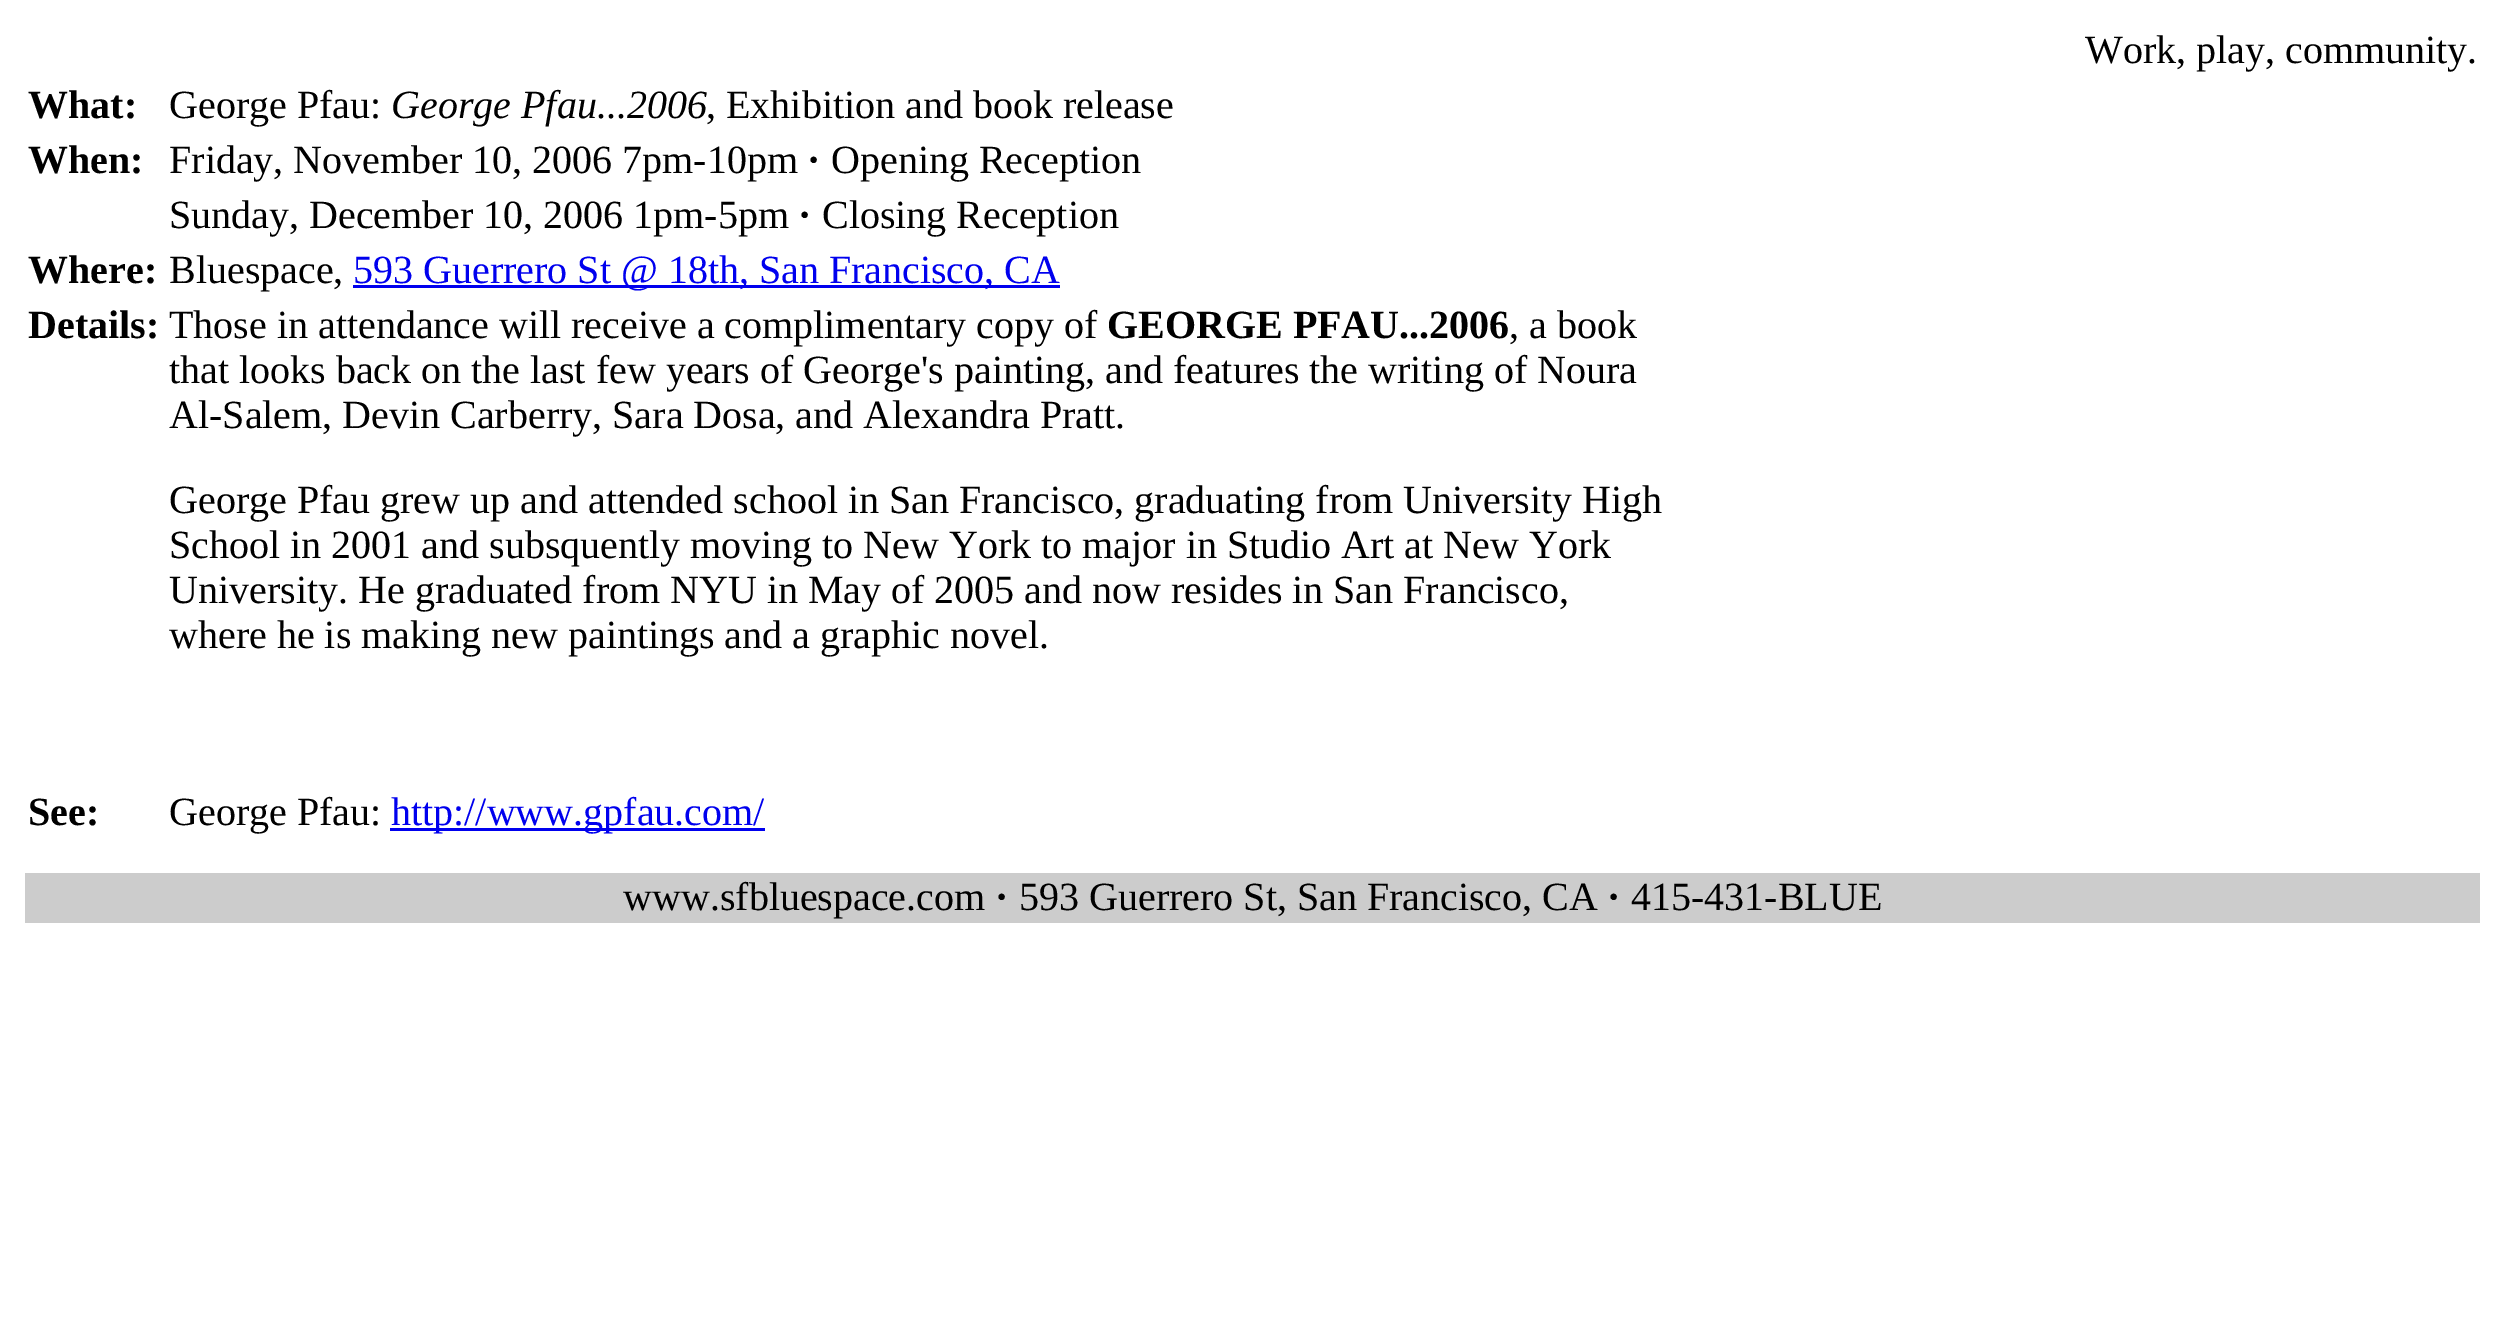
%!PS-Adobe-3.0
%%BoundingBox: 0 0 2504 1342
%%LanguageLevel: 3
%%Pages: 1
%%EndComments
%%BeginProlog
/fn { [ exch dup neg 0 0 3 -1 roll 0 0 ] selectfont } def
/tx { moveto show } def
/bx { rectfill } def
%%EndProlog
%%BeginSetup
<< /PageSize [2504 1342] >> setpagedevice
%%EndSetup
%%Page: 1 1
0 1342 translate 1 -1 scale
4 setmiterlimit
1 setgray
0 0 2504 1342 bx
/LiberationSerif-Regular 40 fn
0 setgray
(Work, play, community.) 2085 63 tx
/LiberationSerif-Bold 40 fn
(What:) 28 118 tx
/LiberationSerif-Regular 40 fn
(George Pfau:) 169 118 tx
/LiberationSerif-Italic 40 fn
(George Pfau...2006) 391 118 tx
/LiberationSerif-Regular 40 fn
(, Exhibition and book release) 706 118 tx
/LiberationSerif-Bold 40 fn
(When:) 28 173 tx
/LiberationSerif-Regular 40 fn
(Friday, November 10, 2006 7pm-10pm) 169 173 tx
/LiberationSerif-Bold 40 fn
(·) 807 173 tx
/LiberationSerif-Regular 40 fn
(Opening Reception) 831 173 tx
(Sunday, December 10, 2006 1pm-5pm) 169 228 tx
/LiberationSerif-Bold 40 fn
(·) 798 228 tx
/LiberationSerif-Regular 40 fn
(Closing Reception) 822 228 tx
/LiberationSerif-Bold 40 fn
(Where:) 28 283 tx
/LiberationSerif-Regular 40 fn
(Bluespace,) 169 283 tx
0 0 0.933 setrgbcolor
353 285 707 3 bx
(593 Guerrero St @ 18th, San Francisco, CA) 353 283 tx
/LiberationSerif-Bold 40 fn
0 setgray
(Details:) 28 338 tx
/LiberationSerif-Regular 40 fn
(Those in attendance will receive a complimentary copy of) 169 338 tx
/LiberationSerif-Bold 40 fn
(GEORGE PFAU...2006) 1107 338 tx
/LiberationSerif-Regular 40 fn
(, a book) 1509 338 tx
(that looks back on the last few years of George's painting, and features the writing of Noura) 169 383 tx
(Al-Salem, Devin Carberry, Sara Dosa, and Alexandra Pratt.) 169 428 tx
(George Pfau grew up and attended school in San Francisco, graduating from University High) 169 513 tx
(School in 2001 and subsquently moving to New York to major in Studio Art at New York) 169 558 tx
(University. He graduated from NYU in May of 2005 and now resides in San Francisco,) 169 603 tx
(where he is making new paintings and a graphic novel.) 169 648 tx
/LiberationSerif-Bold 40 fn
(See:) 28 825 tx
/LiberationSerif-Regular 40 fn
(George Pfau:) 169 825 tx
0 0 0.933 setrgbcolor
390 828 375 3 bx
(http://www.gpfau.com/) 391 825 tx
0.8 setgray
25 873 2455 50 bx
0 setgray
(www.sfbluespace.com) 623 910 tx
/LiberationSerif-Bold 40 fn
(·) 995 910 tx
/LiberationSerif-Regular 40 fn
(593 Guerrero St, San Francisco, CA) 1019 910 tx
/LiberationSerif-Bold 40 fn
(·) 1607 910 tx
/LiberationSerif-Regular 40 fn
(415-431-BLUE) 1631 910 tx
showpage
%%EOF
